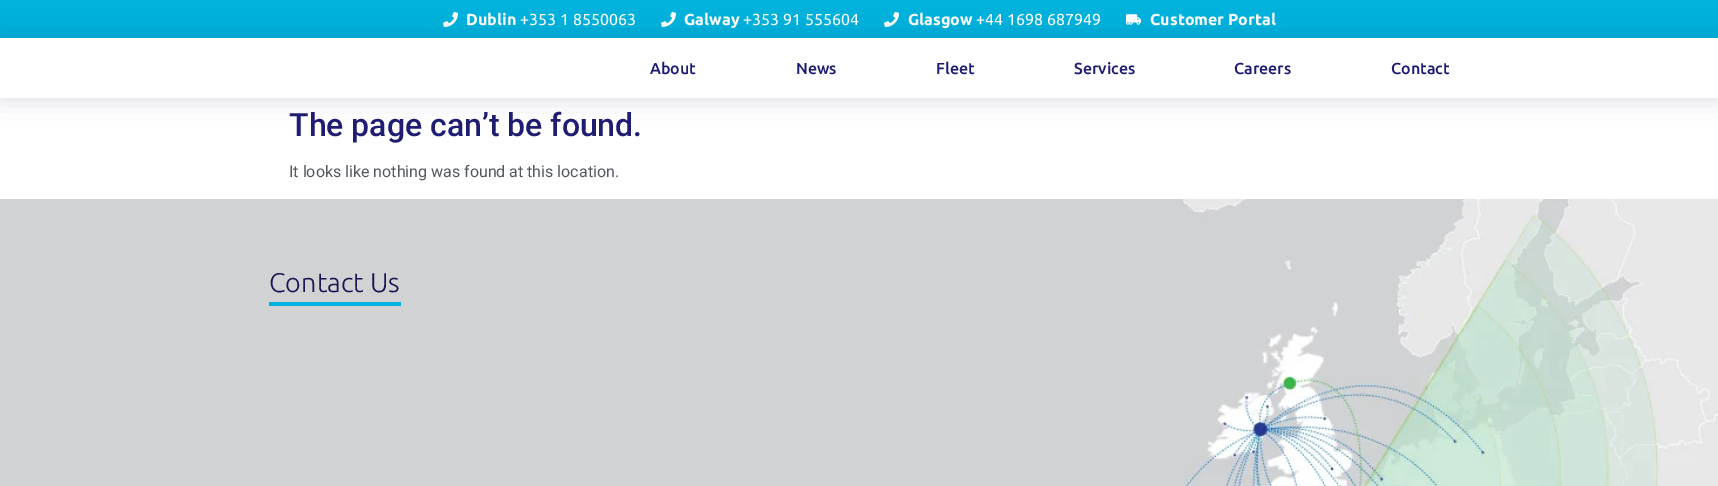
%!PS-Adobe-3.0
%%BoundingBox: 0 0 1718 486
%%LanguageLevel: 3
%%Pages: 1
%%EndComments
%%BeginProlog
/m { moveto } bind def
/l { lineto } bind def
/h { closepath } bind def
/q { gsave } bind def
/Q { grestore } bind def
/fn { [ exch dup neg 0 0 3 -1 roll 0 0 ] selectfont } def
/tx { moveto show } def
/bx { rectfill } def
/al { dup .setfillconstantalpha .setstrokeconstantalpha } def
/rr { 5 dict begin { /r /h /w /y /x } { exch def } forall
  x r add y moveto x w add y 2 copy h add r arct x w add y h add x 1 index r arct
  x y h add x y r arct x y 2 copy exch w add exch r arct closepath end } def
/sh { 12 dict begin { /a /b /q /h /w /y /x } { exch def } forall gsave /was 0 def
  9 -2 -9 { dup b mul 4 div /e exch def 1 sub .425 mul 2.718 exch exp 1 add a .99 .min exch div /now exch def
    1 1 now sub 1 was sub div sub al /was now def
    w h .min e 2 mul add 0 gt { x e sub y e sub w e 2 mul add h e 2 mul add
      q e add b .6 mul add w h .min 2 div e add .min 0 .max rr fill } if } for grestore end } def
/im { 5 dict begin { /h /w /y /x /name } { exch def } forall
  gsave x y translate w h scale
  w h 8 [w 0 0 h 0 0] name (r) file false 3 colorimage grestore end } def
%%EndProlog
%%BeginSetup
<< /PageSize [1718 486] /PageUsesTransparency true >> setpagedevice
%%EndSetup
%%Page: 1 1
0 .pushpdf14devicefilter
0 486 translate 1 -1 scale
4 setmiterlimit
1 setgray
0 0 1718 486 bx
0 0.698 0.863 setrgbcolor
0 0 1718 38 bx
(image0.raw) 443 12 15 15 im
/Ubuntu-Bold 16 fn
1 setgray
(Dublin) 466 25 tx
/Ubuntu-Regular 16 fn
(+353 1 8550063) 520 25 tx
(image0.raw) 661 12 15 15 im
/Ubuntu-Bold 16 fn
(Galway) 684 25 tx
/Ubuntu-Regular 16 fn
(+353 91 555604) 743 25 tx
(image0.raw) 884 12 15 15 im
/Ubuntu-Bold 16 fn
(Glasgow) 908 25 tx
/Ubuntu-Regular 16 fn
(+44 1698 687949) 976 25 tx
(image1.raw) 1126 14 15 11 im
/Ubuntu-Bold 16 fn
(Customer Portal) 1150 25 tx
q
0 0 m 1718 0 l 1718 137 l 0 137 l h 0 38 m 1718 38 l 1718 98 l 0 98 l h eoclip newpath
0.098 0.086 0.322 setrgbcolor
0 38 1718 60 0 12.5 0.17 sh
Q
/Ubuntu-Medium 16 fn
0.122 0.114 0.447 setrgbcolor
(About) 650 74 tx
(News) 796 74 tx
(Fleet) 936 74 tx
(Services) 1074 74 tx
(Careers) 1234 74 tx
(Contact) 1391 74 tx
/Roboto-Medium 32 fn
(The page can’t be found.) 289 136 tx
/Roboto-Regular 16 fn
0.329 0.349 0.373 setrgbcolor
(It looks like nothing was found at this location.) 289 177 tx
0.82 0.824 0.831 setrgbcolor
0 199 1183 287 bx
(image2.raw) 1183 199 535 287 im
0 0.698 0.863 setrgbcolor
269 302 132 4 bx
/Ubuntu-Light 27 fn
0.098 0.086 0.322 setrgbcolor
(Contact Us) 269 292 tx
.poppdf14devicefilter showpage
%%EOF
